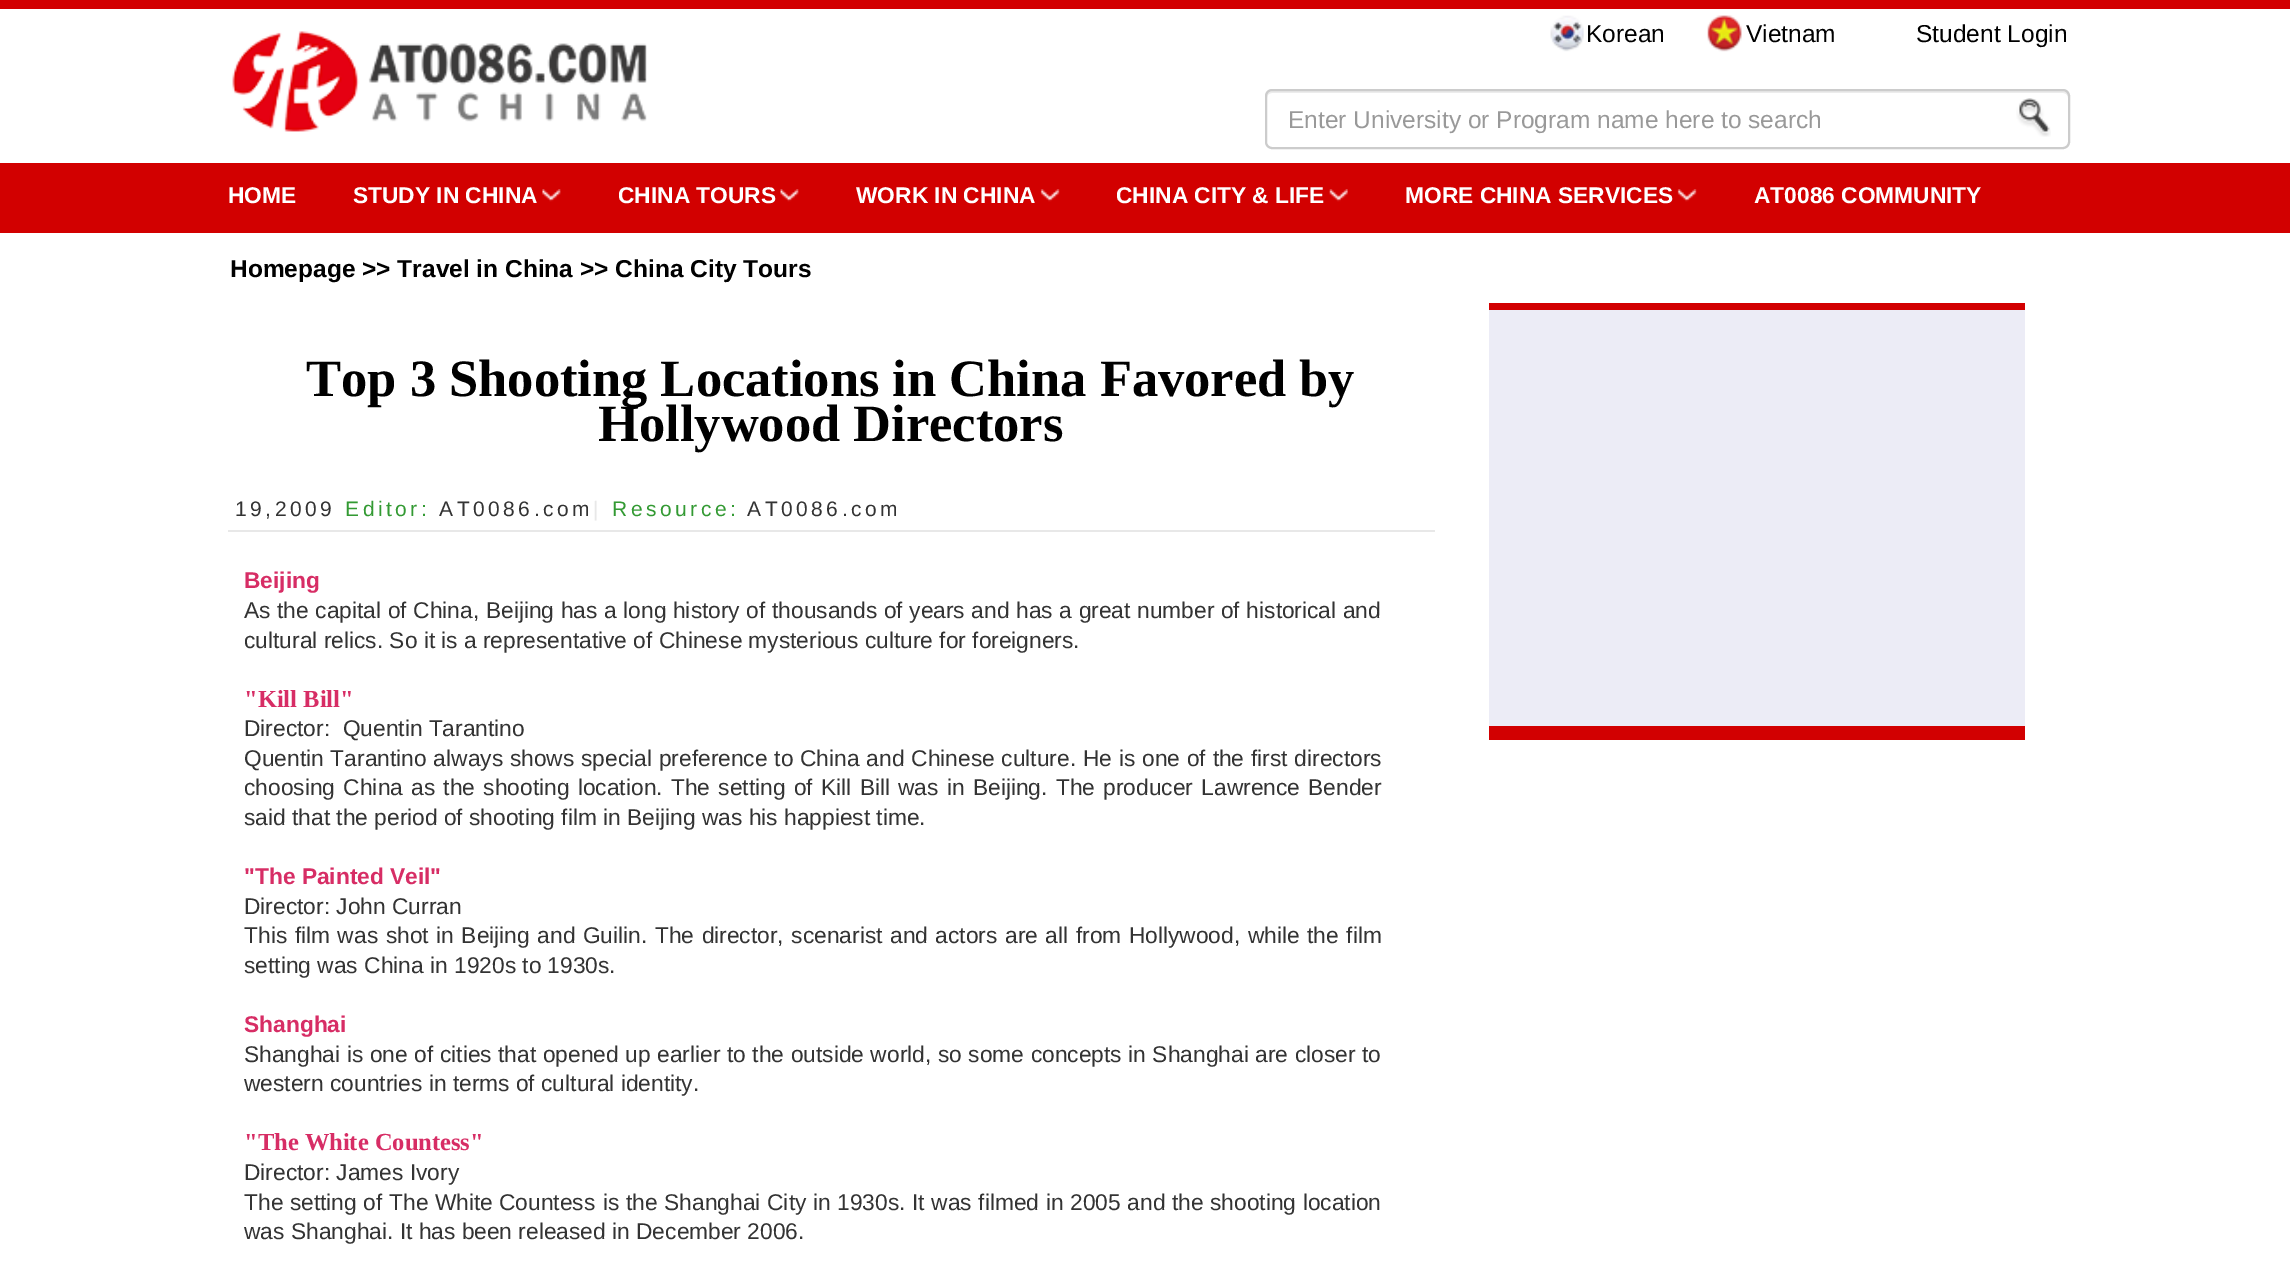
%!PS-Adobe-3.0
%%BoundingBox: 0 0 2290 1284
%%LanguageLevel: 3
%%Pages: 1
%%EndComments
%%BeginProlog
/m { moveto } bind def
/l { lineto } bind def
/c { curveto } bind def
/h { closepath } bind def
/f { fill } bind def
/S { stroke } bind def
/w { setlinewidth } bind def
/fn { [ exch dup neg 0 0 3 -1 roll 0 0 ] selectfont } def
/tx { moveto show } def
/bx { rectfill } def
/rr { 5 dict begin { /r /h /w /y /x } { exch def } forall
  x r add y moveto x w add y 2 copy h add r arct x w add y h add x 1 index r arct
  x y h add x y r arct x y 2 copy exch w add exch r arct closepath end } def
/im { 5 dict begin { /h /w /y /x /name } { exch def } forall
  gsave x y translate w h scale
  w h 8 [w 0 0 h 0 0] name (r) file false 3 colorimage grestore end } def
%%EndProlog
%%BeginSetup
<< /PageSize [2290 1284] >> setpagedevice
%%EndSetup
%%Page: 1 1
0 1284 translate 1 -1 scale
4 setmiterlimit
1 setgray
0 0 2290 1284 bx
0.824 0 0.004 setrgbcolor
0 0 2290 9 bx
(image0.raw) 232 31 415 101 im
(image1.raw) 1550 15 34 37 im
/LiberationSans-Regular 24.5 fn
0 setgray
(Korean) 1586 42 tx
(image2.raw) 1707 15 35 37 im
(Vietnam) 1746 42 tx
(Student Login) 1916 42 tx
0.925 setgray
1272 93 m 2063 93 l 2066 93 2068 95 2068 98 c 2068 145 l 2069 144 2069 143 2069 142 c 2069 96 l 2069 93 2067 91 2064 91 c 1272 91 l 1269 91 1267 93 1267 96 c 1267 98 l 1267 95 1269 93 1272 93 c h f
0.8 setgray
2 w
1266 90 803 58 6 rr S
0.6 setgray
(Enter University or Program name here to search) 1288 128 tx
(image3.raw) 2016 98 35 39 im
0.824 0 0 setrgbcolor
0 163 2290 70 bx
/LiberationSans-Bold 22.75 fn
1 setgray
(HOME) 228 203 tx
(STUDY IN CHINA) 353 203 tx
(image4.raw) 542 189 19 13 im
(CHINA TOURS) 618 203 tx
(image5.raw) 780 189 19 13 im
(WORK IN CHINA) 856 203 tx
(image6.raw) 1040 189 20 13 im
(CHINA CITY & LIFE) 1116 203 tx
(image7.raw) 1329 189 19 13 im
(MORE CHINA SERVICES) 1405 203 tx
(image8.raw) 1677 189 20 13 im
(AT0086 COMMUNITY) 1754 203 tx
/LiberationSans-Bold 24.5 fn
0 setgray
(Homepage >> Travel in China >> China City Tours) 230 277 tx
/LiberationSerif-Bold 52.5 fn
(Top 3 Shooting Locations in China Favored by) 306 396 tx
(Hollywood Directors) 598 441 tx
0.91 setgray
228 530 1207 2 bx
/LiberationSans-Regular 21 fn
0.2 setgray
235 516 m 3.5 0 (19,2009) ashow
0.2 0.604 0.2 setrgbcolor
345 516 m 3.5 0 (Editor:) ashow
0.2 setgray
439 516 m 3.5 0 (AT0086.com) ashow
0.91 setgray
593 516 m 3.5 0 (|) ashow
0.2 0.604 0.2 setrgbcolor
612 516 m 3.5 0 (Resource:) ashow
0.2 setgray
747 516 m 3.5 0 (AT0086.com) ashow
/LiberationSans-Bold 22.75 fn
0.843 0.176 0.396 setrgbcolor
(Beijing) 244 588 tx
/LiberationSans-Regular 22.75 fn
0.2 setgray
244 618 m 0.3 0 32 (As the capital of China, Beijing has a long history of thousands of years and has a great number of historical and) widthshow
(cultural relics. So it is a representative of Chinese mysterious culture for foreigners.) 244 648 tx
/LiberationSerif-Bold 24.5 fn
0.843 0.176 0.396 setrgbcolor
("Kill Bill") 244 707 tx
/LiberationSans-Regular 22.75 fn
0.2 setgray
(Director:  Quentin Tarantino) 244 736 tx
244 766 m 0.5 0 32 (Quentin Tarantino always shows special preference to China and Chinese culture. He is one of the first directors) widthshow
244 795 m 2 0 32 (choosing China as the shooting location. The setting of) widthshow
821 795 m 2 0 32 (Kill Bill) widthshow
898 795 m 2 0 32 (was in Beijing. The producer Lawrence Bender) widthshow
(said that the period of shooting film in Beijing was his happiest time.) 244 825 tx
/LiberationSans-Bold 22.75 fn
0.843 0.176 0.396 setrgbcolor
("The Painted Veil") 244 884 tx
/LiberationSans-Regular 22.75 fn
0.2 setgray
(Director: John Curran) 244 914 tx
244 943 m 1.25 0 32 (This film was shot in Beijing and Guilin. The director, scenarist and actors are all from Hollywood, while the film) widthshow
(setting was China in 1920s to 1930s.) 244 973 tx
/LiberationSans-Bold 22.75 fn
0.843 0.176 0.396 setrgbcolor
(Shanghai) 244 1032 tx
/LiberationSans-Regular 22.75 fn
0.2 setgray
244 1062 m 0.25 0 32 (Shanghai is one of cities that opened up earlier to the outside world, so some concepts in Shanghai are closer to) widthshow
(western countries in terms of cultural identity.) 244 1091 tx
/LiberationSerif-Bold 24.5 fn
0.843 0.176 0.396 setrgbcolor
("The White Countess") 244 1150 tx
/LiberationSans-Regular 22.75 fn
0.2 setgray
(Director: James Ivory) 244 1180 tx
(The setting of) 244 1210 tx
(The White Countess) 389 1210 tx
603 1210 m 0.3 0 32 (is the Shanghai City in 1930s. It was filmed in 2005 and the shooting location) widthshow
(was Shanghai. It has been released in December 2006.) 244 1239 tx
0.925 0.925 0.965 setrgbcolor
1489 310 536 416 bx
0.824 0 0.004 setrgbcolor
1489 303 536 7 bx
1489 726 536 14 bx
showpage
%%EOF
